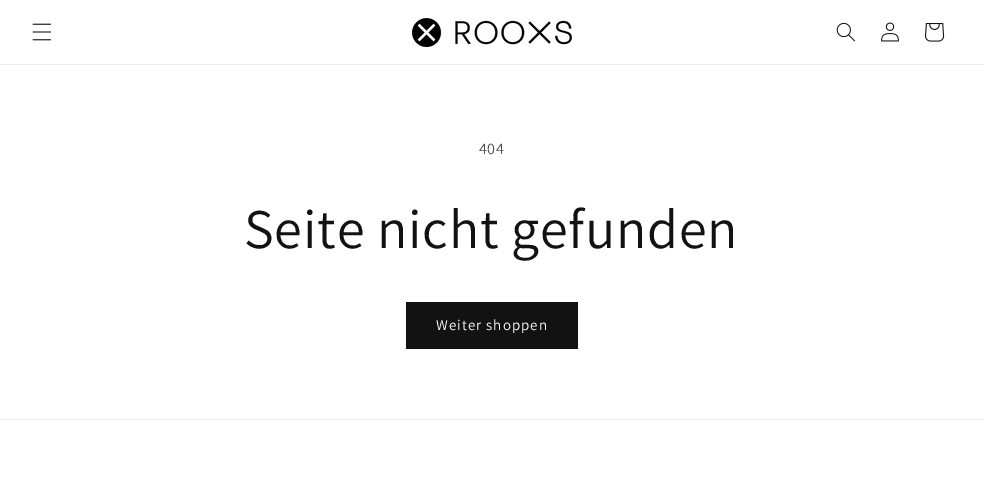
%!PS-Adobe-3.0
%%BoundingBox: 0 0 984 503
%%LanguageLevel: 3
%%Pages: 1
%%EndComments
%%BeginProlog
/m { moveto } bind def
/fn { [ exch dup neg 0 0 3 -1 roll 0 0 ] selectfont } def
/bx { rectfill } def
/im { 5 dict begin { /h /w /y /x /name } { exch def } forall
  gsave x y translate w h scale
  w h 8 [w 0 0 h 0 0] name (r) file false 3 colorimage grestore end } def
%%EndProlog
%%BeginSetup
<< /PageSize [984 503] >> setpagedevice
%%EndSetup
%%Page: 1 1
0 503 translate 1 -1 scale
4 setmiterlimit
1 setgray
0 0 984 503 bx
0.925 setgray
0 64 984 1 bx
(image0.raw) 32 23 20 18 im
(image1.raw) 412 18 160 29 im
(image2.raw) 836 22 19 20 im
(image3.raw) 881 22 18 20 im
(image4.raw) 925 23 20 19 im
/Assistant-Regular 16 fn
0.302 setgray
479 154 m 0.5 0 (404) ashow
/Assistant-Regular 56 fn
0.071 setgray
244 248 m 0.8 0 (Seite nicht gefunden) ashow
406 302 172 47 bx
/Assistant-Regular 15 fn
1 setgray
436 330 m 1 0 (Weiter shoppen) ashow
0.925 setgray
0 419 984 1 bx
showpage
%%EOF
